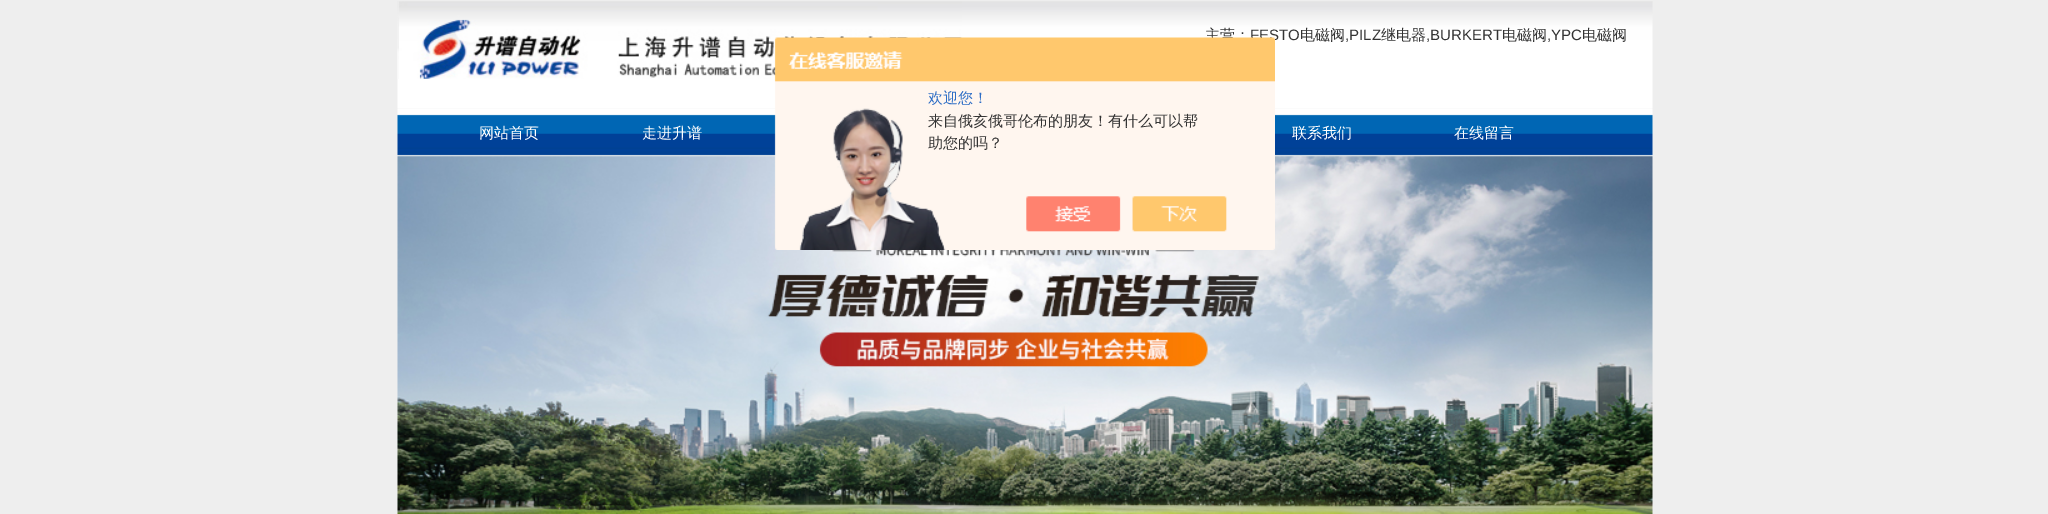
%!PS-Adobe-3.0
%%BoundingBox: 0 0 2048 514
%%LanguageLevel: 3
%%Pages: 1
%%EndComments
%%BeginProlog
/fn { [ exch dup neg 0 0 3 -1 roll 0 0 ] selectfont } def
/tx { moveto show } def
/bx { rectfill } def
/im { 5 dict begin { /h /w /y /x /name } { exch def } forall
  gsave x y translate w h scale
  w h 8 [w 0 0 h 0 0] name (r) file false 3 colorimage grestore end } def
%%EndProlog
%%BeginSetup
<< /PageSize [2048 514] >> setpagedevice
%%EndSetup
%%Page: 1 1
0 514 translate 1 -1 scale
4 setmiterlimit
0.933 setgray
0 0 2048 514 bx
(image0.raw) 397 1 1256 108 im
(image1.raw) 397 1 565 78 im
/WenQuanYiZenHei-Medium 15 fn
0.2 setgray
(主营：) 1205 40 tx
/LiberationSans-Regular 15 fn
(FESTO) 1250 40 tx
/WenQuanYiZenHei-Medium 15 fn
(电磁阀) 1300 40 tx
/LiberationSans-Regular 15 fn
(,PILZ) 1345 40 tx
/WenQuanYiZenHei-Medium 15 fn
(继电器) 1381 40 tx
/LiberationSans-Regular 15 fn
(,BURKERT) 1426 40 tx
/WenQuanYiZenHei-Medium 15 fn
(电磁阀) 1502 40 tx
/LiberationSans-Regular 15 fn
(,YPC) 1547 40 tx
/WenQuanYiZenHei-Medium 15 fn
(电磁阀) 1582 40 tx
(image3.raw) 397 109 1256 47 im
(image4.raw) 397 156 1256 358 im
(image2.raw) 774 37 501 213 im
0.18 0.431 0.776 setrgbcolor
(欢迎您！) 928 103 tx
0.2 setgray
(来自俄亥俄哥伦布的朋友！有什么可以帮) 928 126 tx
(助您的吗？) 928 148 tx
1 setgray
(网站首页) 479 138 tx
(走进升谱) 642 138 tx
(联系我们) 1292 138 tx
(在线留言) 1454 138 tx
showpage
%%EOF
